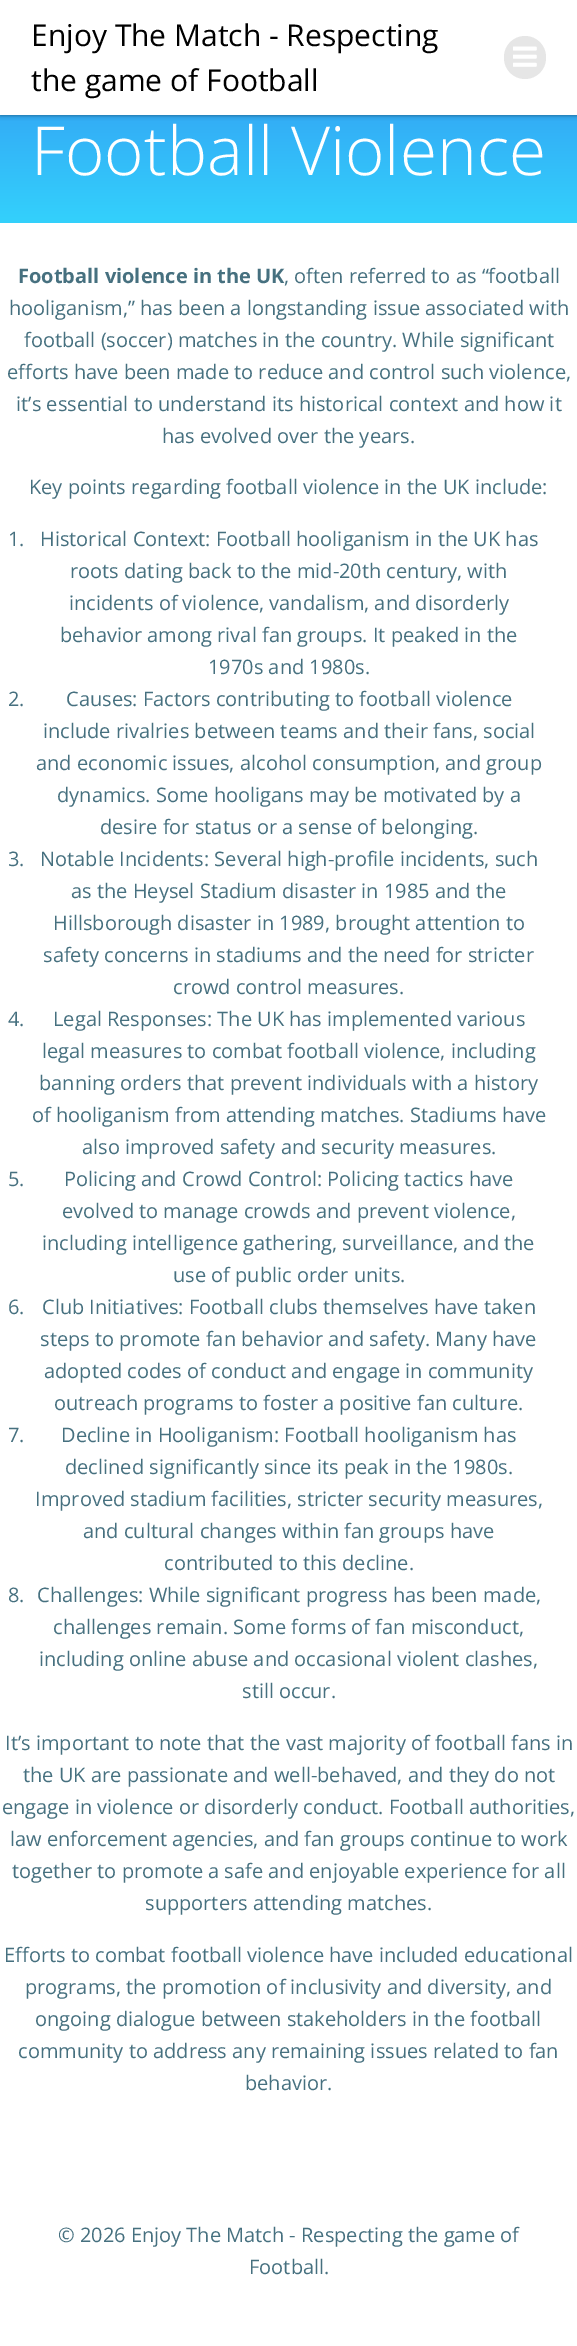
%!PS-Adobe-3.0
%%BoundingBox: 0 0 577 2346
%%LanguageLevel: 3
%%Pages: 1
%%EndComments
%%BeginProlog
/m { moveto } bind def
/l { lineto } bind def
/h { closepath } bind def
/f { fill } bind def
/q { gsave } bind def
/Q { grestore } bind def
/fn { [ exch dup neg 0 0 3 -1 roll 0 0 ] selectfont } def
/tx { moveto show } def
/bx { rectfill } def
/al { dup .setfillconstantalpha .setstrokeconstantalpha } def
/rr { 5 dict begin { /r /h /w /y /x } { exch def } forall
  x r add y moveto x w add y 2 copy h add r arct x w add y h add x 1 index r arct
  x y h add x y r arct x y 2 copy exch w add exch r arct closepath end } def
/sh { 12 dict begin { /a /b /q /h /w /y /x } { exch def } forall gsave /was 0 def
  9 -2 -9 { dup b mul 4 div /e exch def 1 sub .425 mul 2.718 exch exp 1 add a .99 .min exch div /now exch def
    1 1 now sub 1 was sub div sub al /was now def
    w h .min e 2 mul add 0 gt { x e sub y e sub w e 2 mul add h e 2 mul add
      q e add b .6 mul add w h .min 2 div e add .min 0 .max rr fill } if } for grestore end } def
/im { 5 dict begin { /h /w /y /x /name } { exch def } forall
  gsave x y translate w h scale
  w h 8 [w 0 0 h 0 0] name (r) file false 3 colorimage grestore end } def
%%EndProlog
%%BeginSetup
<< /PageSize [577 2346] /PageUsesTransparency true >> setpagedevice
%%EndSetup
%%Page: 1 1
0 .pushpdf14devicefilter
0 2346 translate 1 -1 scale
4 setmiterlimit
1 setgray
0 0 577 2346 bx
q 0 115 m 577 115 l 577 223 l 0 223 l h clip newpath
<< /ShadingType 2 /ColorSpace /DeviceRGB /Coords [289 223 289 -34] /Extend [true true] /Function << /FunctionType 2 /Domain [0 1] /C0 [0.2 0.82 0.988] /C1 [0.2 0.486 0.933] /N 1 >> >> shfill Q
0 setgray
0 0 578 115 0 2.5 0.5 sh
1 setgray
0 0 577 115 bx
/OpenSans-Regular 30 fn
0 setgray
(Enjoy The Match - Respecting) 31 46 tx
(the game of Football) 31 91 tx
0.902 setgray
504 36 42 43 21 rr f
(image0.raw) 513 46 24 21 im
/OpenSans-Light 67.5 fn
1 setgray
(Football Violence) 31 175 tx
/OpenSans-Bold 20 fn
0.275 0.439 0.498 setrgbcolor
(Football violence in the UK) 18 283 tx
/OpenSans-Regular 20 fn
(, often referred to as “football) 284 283 tx
(hooliganism,” has been a longstanding issue associated with) 9 315 tx
(football \(soccer\) matches in the country. While significant) 24 347 tx
(efforts have been made to reduce and control such violence,) 7 379 tx
(it’s essential to understand its historical context and how it) 16 411 tx
(has evolved over the years.) 162 443 tx
(Key points regarding football violence in the UK include:) 29 494 tx
(1.) 8 546 tx
(Historical Context: Football hooliganism in the UK has) 40 546 tx
(roots dating back to the mid-20th century, with) 70 578 tx
(incidents of violence, vandalism, and disorderly) 69 610 tx
(behavior among rival fan groups. It peaked in the) 60 642 tx
(1970s and 1980s.) 208 674 tx
(2.) 8 706 tx
(Causes: Factors contributing to football violence) 66 706 tx
(include rivalries between teams and their fans, social) 43 738 tx
(and economic issues, alcohol consumption, and group) 36 770 tx
(dynamics. Some hooligans may be motivated by a) 57 802 tx
(desire for status or a sense of belonging.) 100 834 tx
(3.) 8 866 tx
(Notable Incidents: Several high-profile incidents, such) 40 866 tx
(as the Heysel Stadium disaster in 1985 and the) 71 898 tx
(Hillsborough disaster in 1989, brought attention to) 53 930 tx
(safety concerns in stadiums and the need for stricter) 43 962 tx
(crowd control measures.) 173 994 tx
(4.) 8 1026 tx
(Legal Responses: The UK has implemented various) 53 1026 tx
(legal measures to combat football violence, including) 42 1058 tx
(banning orders that prevent individuals with a history) 39 1090 tx
(of hooliganism from attending matches. Stadiums have) 32 1122 tx
(also improved safety and security measures.) 82 1154 tx
(5.) 8 1186 tx
(Policing and Crowd Control: Policing tactics have) 64 1186 tx
(evolved to manage crowds and prevent violence,) 62 1218 tx
(including intelligence gathering, surveillance, and the) 42 1250 tx
(use of public order units.) 173 1282 tx
(6.) 8 1314 tx
(Club Initiatives: Football clubs themselves have taken) 42 1314 tx
(steps to promote fan behavior and safety. Many have) 40 1346 tx
(adopted codes of conduct and engage in community) 44 1378 tx
(outreach programs to foster a positive fan culture.) 54 1410 tx
(7.) 8 1442 tx
(Decline in Hooliganism: Football hooliganism has) 61 1442 tx
(declined significantly since its peak in the 1980s.) 65 1474 tx
(Improved stadium facilities, stricter security measures,) 35 1506 tx
(and cultural changes within fan groups have) 83 1538 tx
(contributed to this decline.) 164 1570 tx
(8.) 8 1602 tx
(Challenges: While significant progress has been made,) 37 1602 tx
(challenges remain. Some forms of fan misconduct,) 53 1634 tx
(including online abuse and occasional violent clashes,) 39 1666 tx
(still occur.) 242 1698 tx
(It’s important to note that the vast majority of football fans in) 5 1750 tx
(the UK are passionate and well-behaved, and they do not) 23 1782 tx
(engage in violence or disorderly conduct. Football authorities,) 2 1814 tx
(law enforcement agencies, and fan groups continue to work) 10 1846 tx
(together to promote a safe and enjoyable experience for all) 12 1878 tx
(supporters attending matches.) 145 1910 tx
(Efforts to combat football violence have included educational) 4 1962 tx
(programs, the promotion of inclusivity and diversity, and) 25 1994 tx
(ongoing dialogue between stakeholders in the football) 35 2026 tx
(community to address any remaining issues related to fan) 18 2058 tx
(behavior.) 245 2090 tx
(© 2026 Enjoy The Match - Respecting the game of) 58 2242 tx
(Football.) 249 2274 tx
.poppdf14devicefilter showpage
%%EOF
